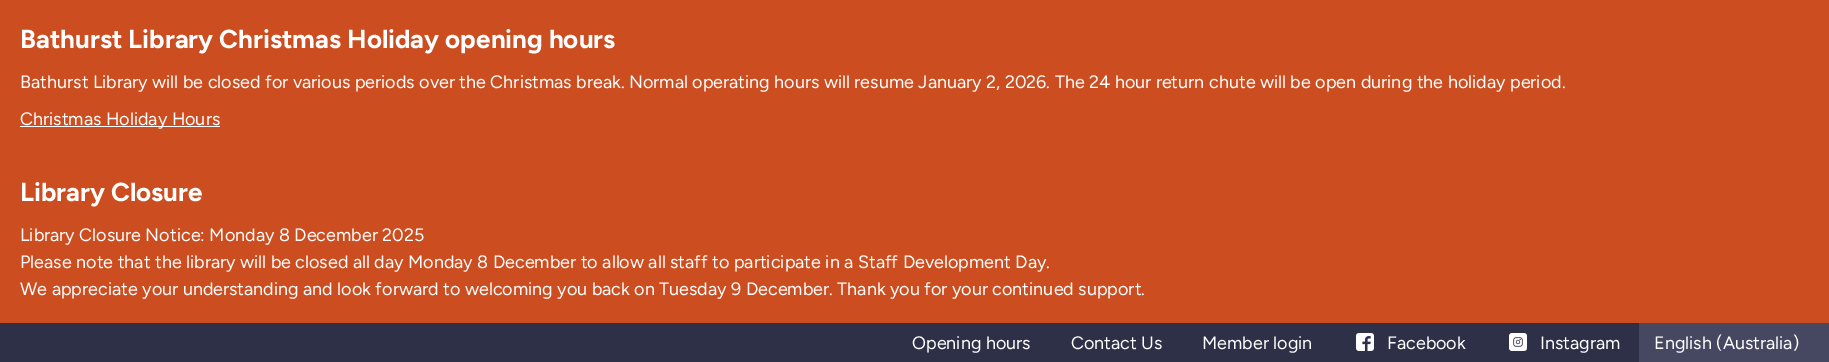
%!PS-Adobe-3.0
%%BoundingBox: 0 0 1829 362
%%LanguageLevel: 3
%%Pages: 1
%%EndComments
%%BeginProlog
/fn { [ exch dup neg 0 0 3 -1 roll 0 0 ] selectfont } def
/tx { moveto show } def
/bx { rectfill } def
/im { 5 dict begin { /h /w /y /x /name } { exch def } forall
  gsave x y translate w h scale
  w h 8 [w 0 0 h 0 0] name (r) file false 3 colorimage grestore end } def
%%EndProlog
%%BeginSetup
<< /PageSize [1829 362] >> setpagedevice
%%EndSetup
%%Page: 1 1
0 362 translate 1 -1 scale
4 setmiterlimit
0.796 0.302 0.125 setrgbcolor
0 0 1829 362 bx
/Figtree-Bold 26 fn
1 setgray
(Bathurst Library Christmas Holiday opening hours) 20 48 tx
/Figtree-Regular 18 fn
(Bathurst Library will be closed for various periods over the Christmas break. Normal operating hours will resume January 2, 2026. The 24 hour return chute will be open during the holiday period.) 20 88 tx
20 126 200 1 bx
(Christmas Holiday Hours) 20 125 tx
/Figtree-Bold 26 fn
(Library Closure) 20 201 tx
/Figtree-Regular 18 fn
(Library Closure Notice: Monday 8 December 2025) 20 241 tx
(Please note that the library will be closed all day Monday 8 December to allow all staff to participate in a Staff Development Day.) 20 268 tx
(We appreciate your understanding and look forward to welcoming you back on Tuesday 9 December. Thank you for your continued support.) 20 295 tx
0.176 0.188 0.278 setrgbcolor
0 323 1639 39 bx
1 setgray
(Opening hours) 912 349 tx
(Contact Us) 1071 349 tx
(Member login) 1202 349 tx
(image0.raw) 1356 333 18 18 im
(Facebook) 1387 349 tx
(image1.raw) 1509 333 18 18 im
(Instagram) 1540 349 tx
0.271 0.282 0.376 setrgbcolor
1639 323 190 39 bx
1 setgray
(English \(Australia\)) 1654 349 tx
showpage
%%EOF
